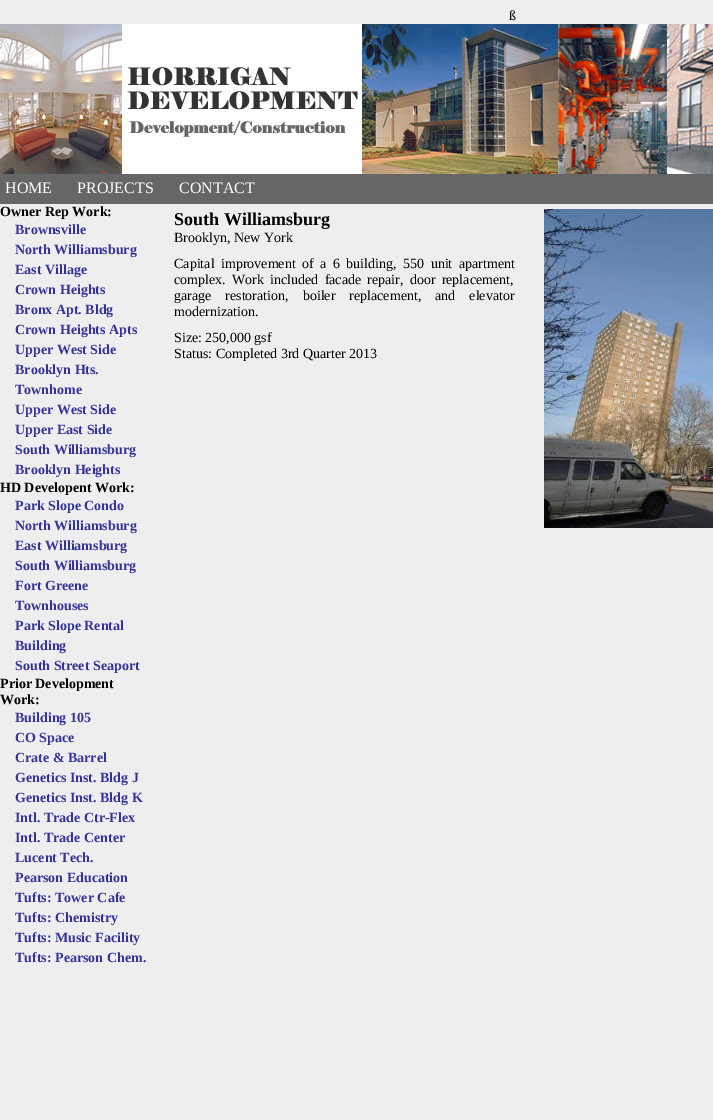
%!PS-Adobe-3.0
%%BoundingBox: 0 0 713 1120
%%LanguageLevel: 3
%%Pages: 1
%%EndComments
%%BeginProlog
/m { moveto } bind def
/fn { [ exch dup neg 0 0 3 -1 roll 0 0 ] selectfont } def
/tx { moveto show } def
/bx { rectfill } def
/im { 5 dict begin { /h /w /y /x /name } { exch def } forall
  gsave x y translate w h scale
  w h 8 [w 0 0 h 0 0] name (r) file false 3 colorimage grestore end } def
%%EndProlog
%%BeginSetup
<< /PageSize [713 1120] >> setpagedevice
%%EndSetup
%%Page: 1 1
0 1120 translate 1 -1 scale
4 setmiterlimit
0.933 setgray
0 0 713 1120 bx
/LiberationSerif-Regular 14 fn
0 setgray
(ß) 509 20 tx
(image0.raw) 0 24 713 150 im
0.4 setgray
0 174 713 30 bx
/LiberationSerif-Regular 16 fn
1 setgray
(HOME) 5 193 tx
(PROJECTS) 77 193 tx
(CONTACT) 179 193 tx
/LiberationSerif-Bold 14 fn
0 setgray
(Owner Rep Work:) 0 216 tx
0.2 0.2 0.6 setrgbcolor
(Brownsville) 15 234 tx
(North Williamsburg) 15 254 tx
(East Village) 15 274 tx
(Crown Heights) 15 294 tx
(Bronx Apt. Bldg) 15 314 tx
(Crown Heights Apts) 15 334 tx
(Upper West Side) 15 354 tx
(Brooklyn Hts.) 15 374 tx
(Townhome) 15 394 tx
(Upper West Side) 15 414 tx
(Upper East Side) 15 434 tx
(South Williamsburg) 15 454 tx
(Brooklyn Heights) 15 474 tx
0 setgray
(HD Developent Work:) 0 492 tx
0.2 0.2 0.6 setrgbcolor
(Park Slope Condo) 15 510 tx
(North Williamsburg) 15 530 tx
(East Williamsburg) 15 550 tx
(South Williamsburg) 15 570 tx
(Fort Greene) 15 590 tx
(Townhouses) 15 610 tx
(Park Slope Rental) 15 630 tx
(Building) 15 650 tx
(South Street Seaport) 15 670 tx
0 setgray
(Prior Development) 0 688 tx
(Work:) 0 704 tx
0.2 0.2 0.6 setrgbcolor
(Building 105) 15 722 tx
(CO Space) 15 742 tx
(Crate & Barrel) 15 762 tx
(Genetics Inst. Bldg J) 15 782 tx
(Genetics Inst. Bldg K) 15 802 tx
(Intl. Trade Ctr-Flex) 15 822 tx
(Intl. Trade Center) 15 842 tx
(Lucent Tech.) 15 862 tx
(Pearson Education) 15 882 tx
(Tufts: Tower Cafe) 15 902 tx
(Tufts: Chemistry) 15 922 tx
(Tufts: Music Facility) 15 942 tx
(Tufts: Pearson Chem.) 15 962 tx
/LiberationSerif-Bold 18 fn
0 setgray
(South Williamsburg) 174 225 tx
(image1.raw) 544 209 169 319 im
/LiberationSerif-Regular 14 fn
(Brooklyn, New York) 174 242 tx
174 268 m 3 0 32 (Capital improvement of a 6 building, 550 unit apartment) widthshow
174 284 m 2.75 0 32 (complex. Work included facade repair, door replacement,) widthshow
174 300 m 10.5 0 32 (garage restoration, boiler replacement, and elevator) widthshow
(modernization.) 174 316 tx
(Size: 250,000 gsf) 174 342 tx
(Status: Completed 3rd Quarter 2013) 174 358 tx
showpage
%%EOF
